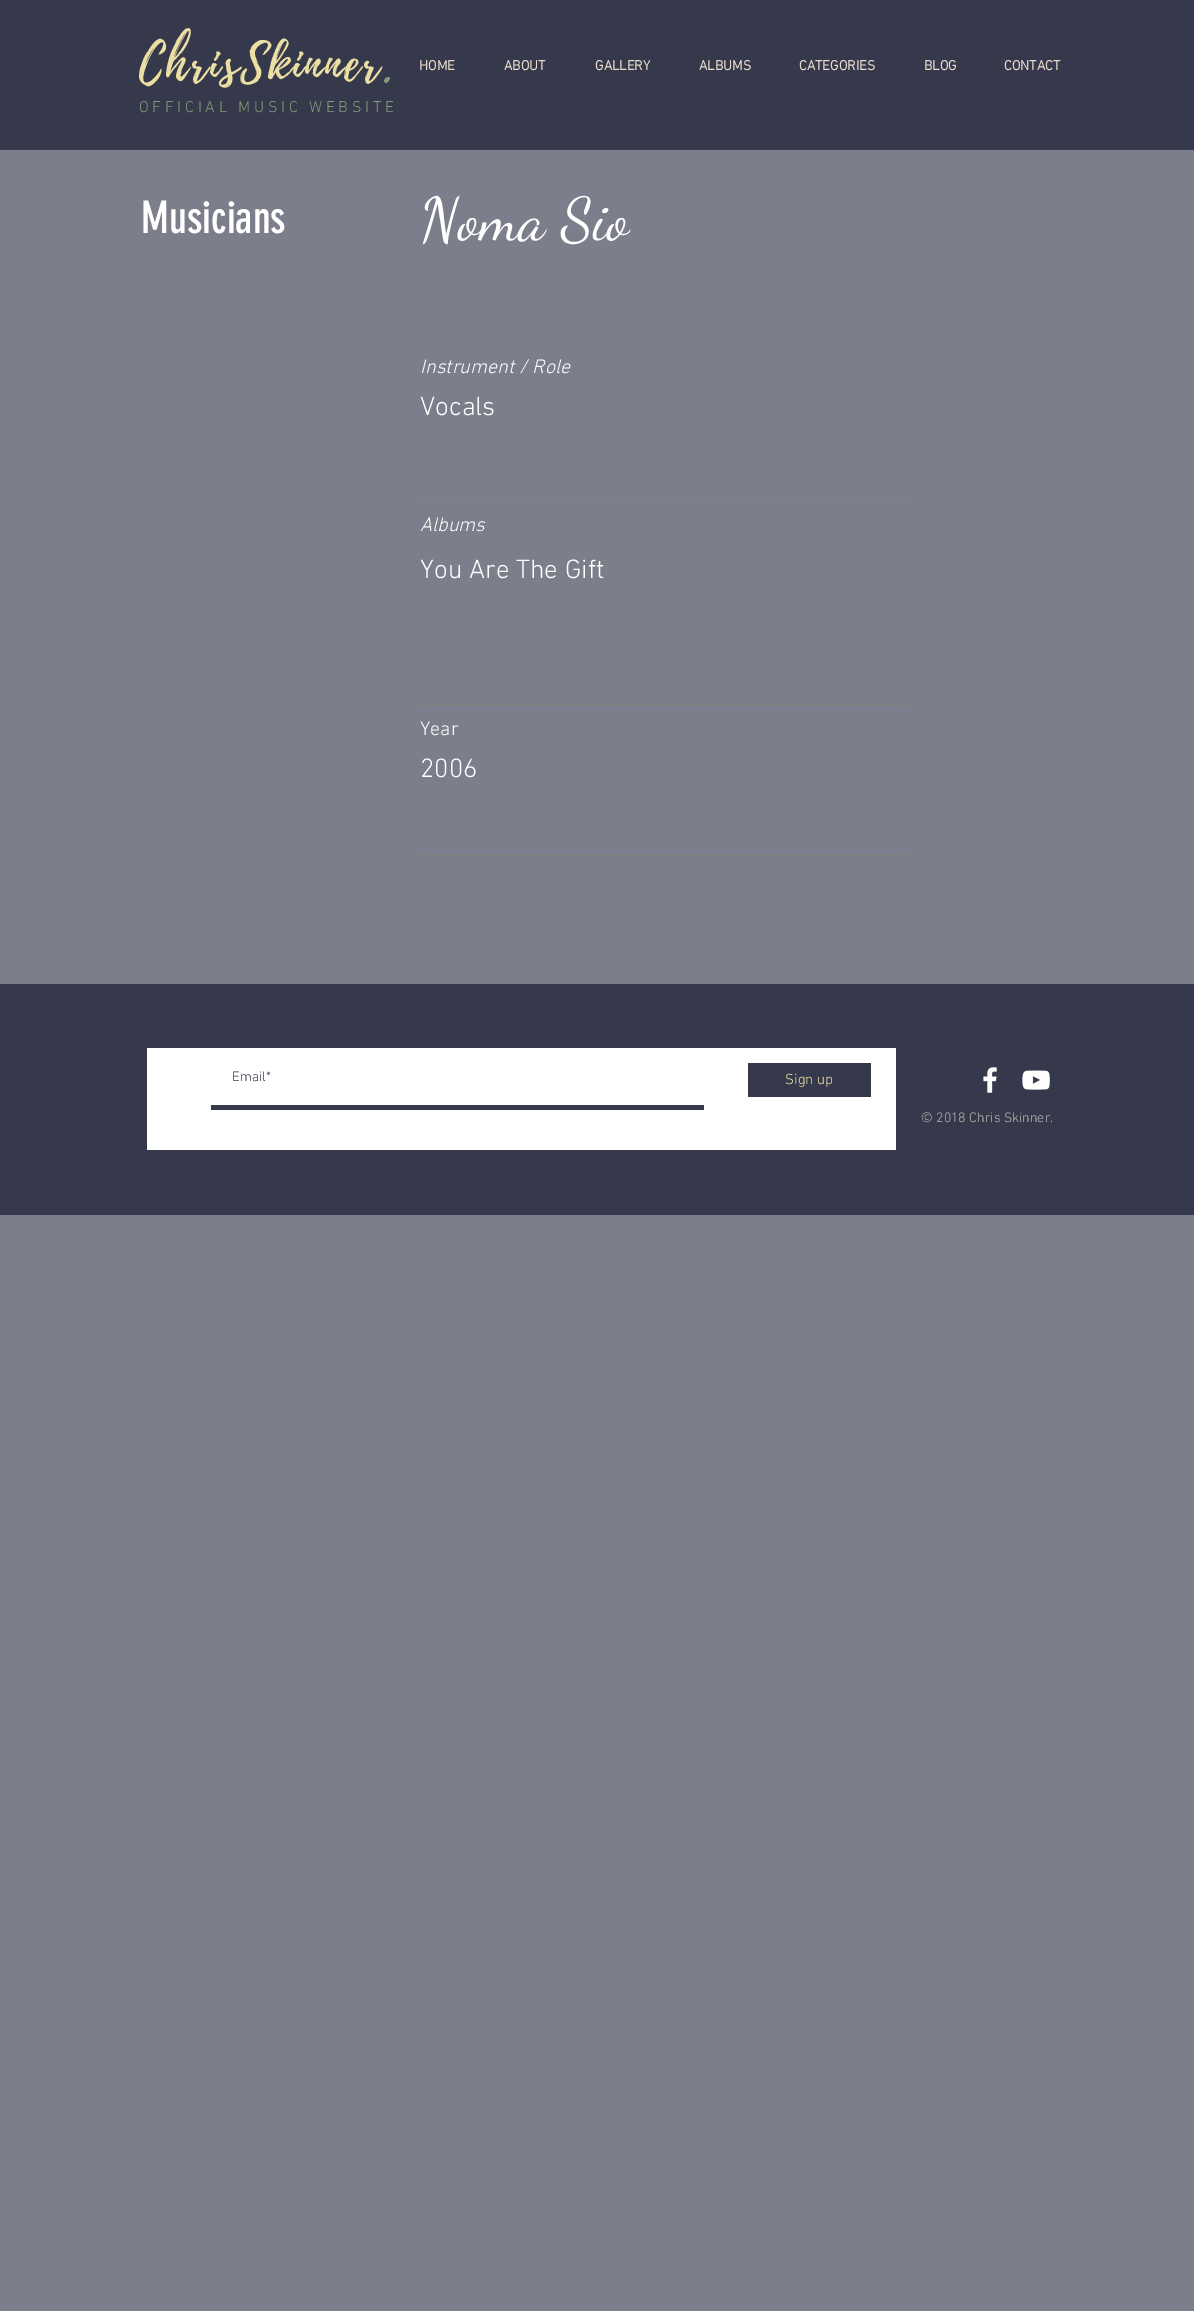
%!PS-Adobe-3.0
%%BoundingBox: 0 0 1194 2311
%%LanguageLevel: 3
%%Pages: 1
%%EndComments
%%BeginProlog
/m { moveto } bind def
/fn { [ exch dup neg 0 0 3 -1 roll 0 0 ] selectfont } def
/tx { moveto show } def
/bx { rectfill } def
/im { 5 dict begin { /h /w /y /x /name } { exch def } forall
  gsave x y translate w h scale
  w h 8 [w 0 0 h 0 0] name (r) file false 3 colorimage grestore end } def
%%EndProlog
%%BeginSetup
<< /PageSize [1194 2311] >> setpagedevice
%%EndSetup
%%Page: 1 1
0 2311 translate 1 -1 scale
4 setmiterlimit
0.49 0.494 0.545 setrgbcolor
0 0 1194 2311 bx
0.212 0.22 0.298 setrgbcolor
0 0 1194 150 bx
/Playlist-Regular 50 fn
0.922 0.875 0.639 setrgbcolor
139 79 m 2.5 0 (ChrisSkinner) ashow
0.518 0.6 0.455 setrgbcolor
382 79 m 2.5 0 (.) ashow
/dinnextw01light-Light 16 fn
139 112 m 3.7 0 (OFFICIAL MUSIC WEBSITE) ashow
/dinnextw01light-Bold 14 fn
0.914 0.863 0.804 setrgbcolor
(HOME) 419 70 tx
(ABOUT) 504 70 tx
(GALLERY) 595 70 tx
(ALBUMS) 699 70 tx
(CATEGORIES) 799 70 tx
(BLOG) 924 70 tx
(CONTACT) 1004 70 tx
/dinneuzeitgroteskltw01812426-Regular 44 fn
1 setgray
(Musicians) 141 233 tx
/DancingScript-Regular 60 fn
(Noma Sio) 420 239 tx
/dinnextw01light-LightItalic 20 fn
(Instrument / Role) 420 373 tx
/dinnextw01light-Light 27 fn
(Vocals) 420 415 tx
0.525 0.502 0.486 setrgbcolor
422 498 489 1 bx
/dinnextw01light-LightItalic 20 fn
1 setgray
(Albums) 420 531 tx
/dinnextw01light-Light 27 fn
(You Are The Gift) 420 578 tx
0.525 0.502 0.486 setrgbcolor
420 704 489 1 bx
/dinnextw01light-Light 20 fn
1 setgray
(Year) 420 735 tx
/dinnextw01light-Light 27 fn
(2006) 420 777 tx
0.525 0.502 0.486 setrgbcolor
420 855 489 1 bx
0.212 0.22 0.298 setrgbcolor
0 984 1194 231 bx
1 setgray
147 1048 749 102 bx
0.212 0.22 0.298 setrgbcolor
211 1105 493 5 bx
/dinnextw01light-Light 14 fn
(Email*) 232 1081 tx
748 1063 123 34 bx
/dinnextw01light-Light 15 fn
0.922 0.875 0.639 setrgbcolor
(Sign up) 785 1084 tx
(image0.raw) 983 1067 14 26 im
(image1.raw) 1022 1070 28 20 im
/dinnextw01light-Light 14 fn
0.745 0.714 0.69 setrgbcolor
(© 2018 Chris Skinner.) 921 1122 tx
showpage
%%EOF
